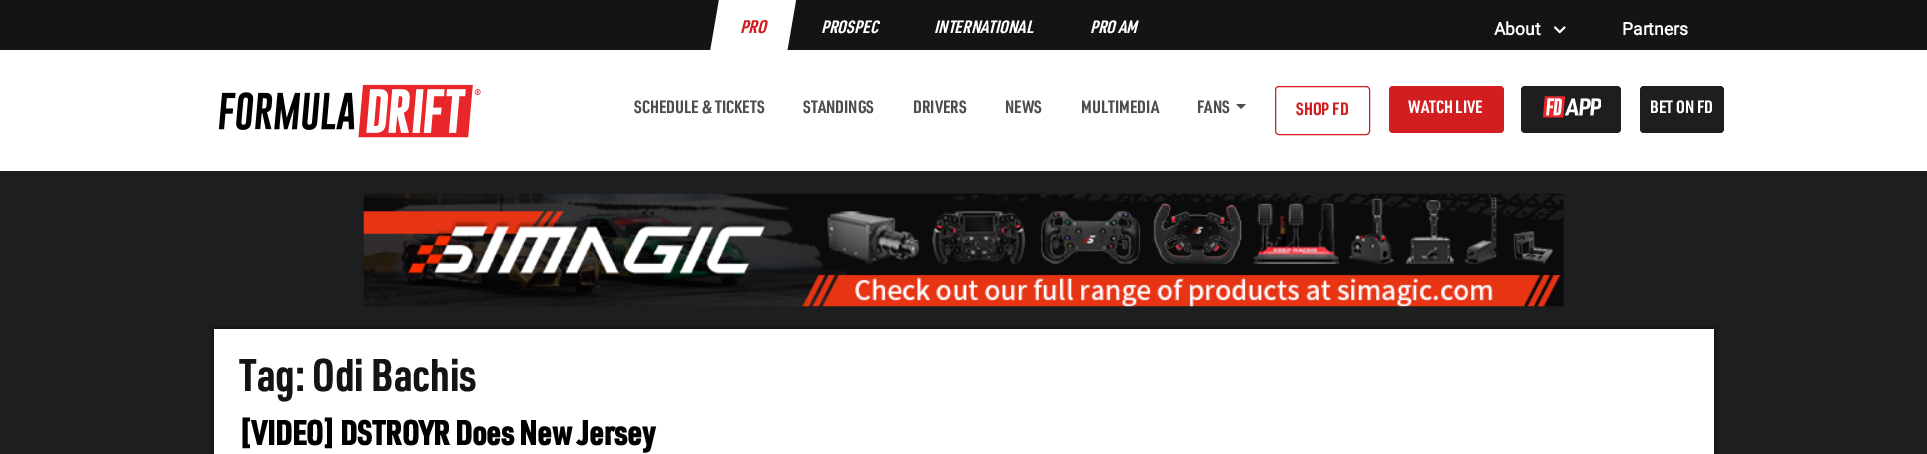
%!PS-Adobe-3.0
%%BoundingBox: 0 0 1927 454
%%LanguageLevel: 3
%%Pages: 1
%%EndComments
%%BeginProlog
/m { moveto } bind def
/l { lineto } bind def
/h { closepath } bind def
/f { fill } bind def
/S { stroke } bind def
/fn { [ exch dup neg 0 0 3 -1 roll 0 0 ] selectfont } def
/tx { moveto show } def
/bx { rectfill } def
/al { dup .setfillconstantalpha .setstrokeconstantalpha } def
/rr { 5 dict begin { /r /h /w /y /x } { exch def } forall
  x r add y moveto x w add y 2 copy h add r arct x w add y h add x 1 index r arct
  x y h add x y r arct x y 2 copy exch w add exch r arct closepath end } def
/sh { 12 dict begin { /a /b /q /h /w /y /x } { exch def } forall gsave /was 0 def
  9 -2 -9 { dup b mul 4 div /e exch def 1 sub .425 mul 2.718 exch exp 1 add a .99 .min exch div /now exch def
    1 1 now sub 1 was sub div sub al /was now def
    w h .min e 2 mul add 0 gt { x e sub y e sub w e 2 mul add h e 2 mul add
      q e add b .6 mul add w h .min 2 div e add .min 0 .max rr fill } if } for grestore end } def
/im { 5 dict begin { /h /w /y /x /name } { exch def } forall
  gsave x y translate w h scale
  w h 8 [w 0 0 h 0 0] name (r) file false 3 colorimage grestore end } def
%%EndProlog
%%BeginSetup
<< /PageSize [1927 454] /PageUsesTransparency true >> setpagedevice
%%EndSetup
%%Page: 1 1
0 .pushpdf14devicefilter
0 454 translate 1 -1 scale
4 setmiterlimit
0.114 0.118 0.122 setrgbcolor
0 0 1927 454 bx
0.078 setgray
0 0 1927 50 bx
1 setgray
719 0 m 796 0 l 786 58 l 709 58 l h f
/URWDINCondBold-Italic 18 fn
0.827 0.118 0.129 setrgbcolor
(PRO) 740 33 tx
/URWDINCondBold-Italic 17.5 fn
1 setgray
(PROSPEC) 821 33 tx
(INTERNATIONAL) 934 33 tx
(PRO AM) 1090 33 tx
/Roboto-Bold 17.5 fn
(About) 1494 35 tx
(image0.raw) 1554 26 12 8 im
(Partners) 1622 35 tx
0 50 1927 121 bx
(image1.raw) 218 84 263 54 im
/URWDINCondBold-Regular 17.5 fn
0.302 setgray
(SCHEDULE & TICKETS) 634 113 tx
(STANDINGS) 803 113 tx
(DRIVERS) 913 113 tx
(NEWS) 1005 113 tx
(MULTIMEDIA) 1081 113 tx
(FANS) 1197 113 tx
1236 104 m 1246 104 l 1241 109 l h f
0.827 0.118 0.129 setrgbcolor
1275.5 86.5 94 48 3.5 rr S
(SHOP FD) 1296 115 tx
1389 86 115 47 4 rr f
1 setgray
(WATCH LIVE) 1408 113 tx
0.114 0.118 0.122 setrgbcolor
1521 86 100 47 4 rr f
(image2.raw) 1543 96 58 22 im
1640 86 84 47 4 rr f
1 setgray
(BET ON FD) 1650 113 tx
(image3.raw) 363 193 1201 114 im
0 setgray
214 329 1500 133 0 2.5 0.75 sh
1 setgray
214 329 1500 125 bx
/URWDINCondBold-Regular 45 fn
0.078 setgray
(Tag: Odi Bachis) 239 391 tx
/URWDINCondBold-Bold 33.75 fn
0 setgray
([VIDEO] DSTROYR Does New Jersey) 239 445 tx
.poppdf14devicefilter showpage
%%EOF
